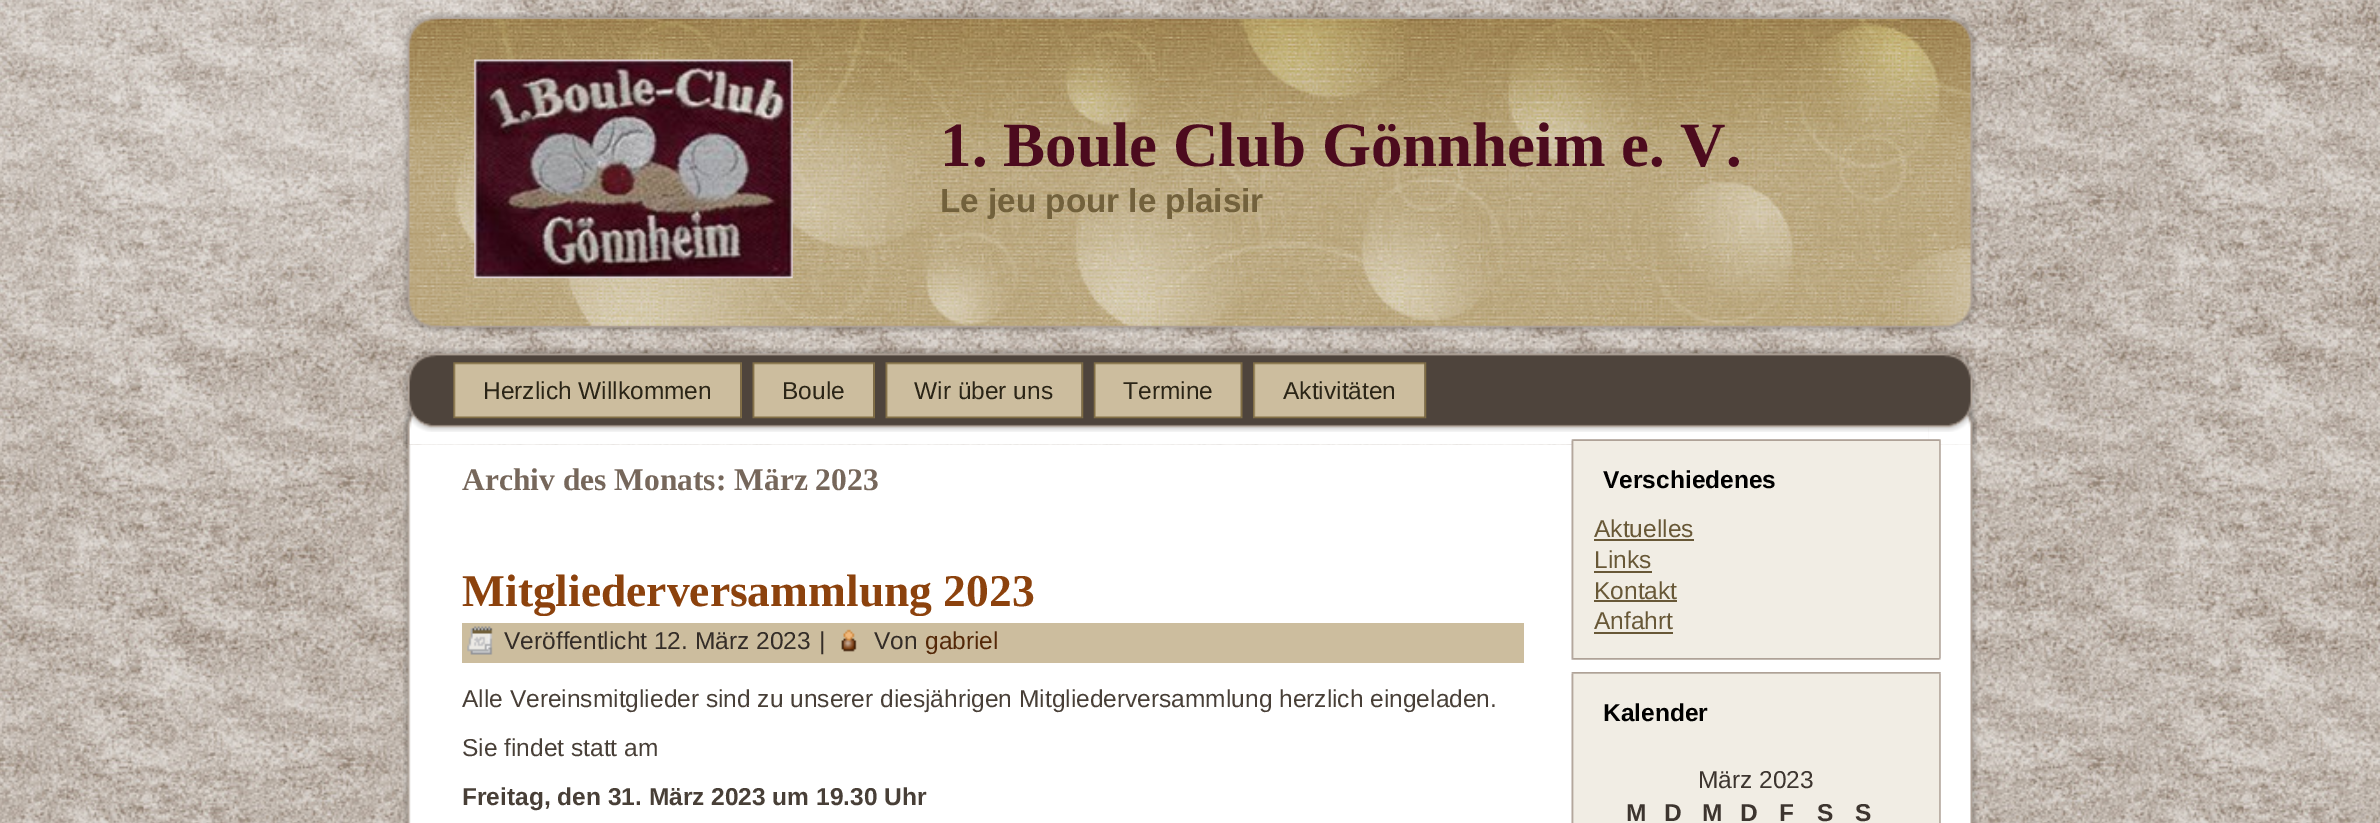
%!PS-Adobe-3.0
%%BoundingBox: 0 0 2380 823
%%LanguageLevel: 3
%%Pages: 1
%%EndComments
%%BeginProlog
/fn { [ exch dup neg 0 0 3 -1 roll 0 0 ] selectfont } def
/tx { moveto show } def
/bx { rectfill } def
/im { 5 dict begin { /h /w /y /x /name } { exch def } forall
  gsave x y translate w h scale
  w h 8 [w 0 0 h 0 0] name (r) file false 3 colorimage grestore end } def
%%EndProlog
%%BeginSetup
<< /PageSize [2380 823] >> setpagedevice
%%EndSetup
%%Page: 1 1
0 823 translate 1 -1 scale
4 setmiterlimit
1 setgray
0 0 2380 823 bx
(image0.raw) 0 0 2380 823 im
(image1.raw) 0 0 522 397 im
(image2.raw) 402 12 1576 321 im
(image3.raw) 441 19 1498 307 im
(image4.raw) 474 59 319 220 im
/LiberationSerif-Bold 63 fn
0.298 0.043 0.118 setrgbcolor
(1. Boule Club Gönnheim e. V.) 940 166 tx
/LiberationSans-Bold 33.25 fn
0.447 0.38 0.235 setrgbcolor
(Le jeu pour le plaisir) 940 212 tx
(image15.raw) 403 406 1526 39 im
(image16.raw) 403 406 1526 39 im
(image19.raw) 403 445 1526 378 im
(image20.raw) 1928 444 50 379 im
(image17.raw) 1928 407 49 38 im
(image18.raw) 1928 407 49 38 im
(image5.raw) 402 348 1537 84 im
(image6.raw) 1939 348 39 84 im
(image7.raw) 453 362 288 57 im
/LiberationSans-Regular 24.5 fn
0.169 0.145 0.09 setrgbcolor
(Herzlich Willkommen) 483 399 tx
(image8.raw) 740 362 2 57 im
(image9.raw) 752 362 122 57 im
(Boule) 782 399 tx
(image8.raw) 873 362 2 57 im
(image10.raw) 885 362 197 57 im
(image11.raw) 1081 362 3 57 im
(Wir über uns) 914 399 tx
(image12.raw) 1093 362 148 57 im
(image13.raw) 1240 362 3 57 im
(Termine) 1123 399 tx
(image14.raw) 1253 362 172 57 im
(image11.raw) 1424 362 3 57 im
(Aktivitäten) 1283 399 tx
/LiberationSerif-Bold 31.5 fn
0.463 0.404 0.357 setrgbcolor
(Archiv des Monats: März 2023) 462 490 tx
/LiberationSerif-Bold 45.5 fn
0.549 0.259 0.051 setrgbcolor
(Mitgliederversammlung 2023) 462 606 tx
0.8 0.741 0.62 setrgbcolor
462 623 1062 40 bx
(image21.raw) 467 626 26 29 im
/LiberationSans-Regular 24.5 fn
0.204 0.176 0.157 setrgbcolor
(Veröffentlicht 12. März 2023) 504 649 tx
(|) 819 649 tx
(image22.raw) 841 629 16 23 im
(Von) 874 649 tx
0.329 0.157 0.031 setrgbcolor
(gabriel) 925 649 tx
0.282 0.247 0.216 setrgbcolor
(Alle Vereinsmitglieder sind zu unserer diesjährigen Mitgliederversammlung herzlich eingeladen.) 462 707 tx
(Sie findet statt am) 462 756 tx
/LiberationSans-Bold 24.5 fn
(Freitag, den 31. März 2023 um 19.30 Uhr) 462 805 tx
(image23.raw) 1571 439 368 221 im
(image24.raw) 1571 439 368 2 im
(image28.raw) 1939 441 2 217 im
(image25.raw) 1939 439 2 221 im
(image26.raw) 1939 439 2 2 im
(image27.raw) 1571 441 368 217 im
0 setgray
(Verschiedenes) 1603 488 tx
/LiberationSans-Regular 24.5 fn
0.408 0.345 0.216 setrgbcolor
(Aktuelles) 1594 537 tx
1594 539 100 2 bx
(Links) 1594 568 tx
1594 571 58 2 bx
(Kontakt) 1594 599 tx
1594 600 83 2 bx
(Anfahrt) 1594 629 tx
1594 632 79 2 bx
(image29.raw) 1571 672 368 2 im
(image30.raw) 1571 672 368 2 im
(image34.raw) 1939 673 2 150 im
(image31.raw) 1939 672 2 2 im
(image32.raw) 1939 672 2 2 im
(image33.raw) 1571 673 368 150 im
/LiberationSans-Bold 24.5 fn
0 setgray
(Kalender) 1603 721 tx
/LiberationSans-Regular 24.5 fn
0.239 0.208 0.184 setrgbcolor
(März 2023) 1698 788 tx
/LiberationSans-Bold 24.5 fn
(M) 1626 821 tx
(D) 1664 821 tx
(M) 1702 821 tx
(D) 1740 821 tx
(F) 1779 821 tx
(S) 1817 821 tx
(S) 1855 821 tx
showpage
%%EOF
